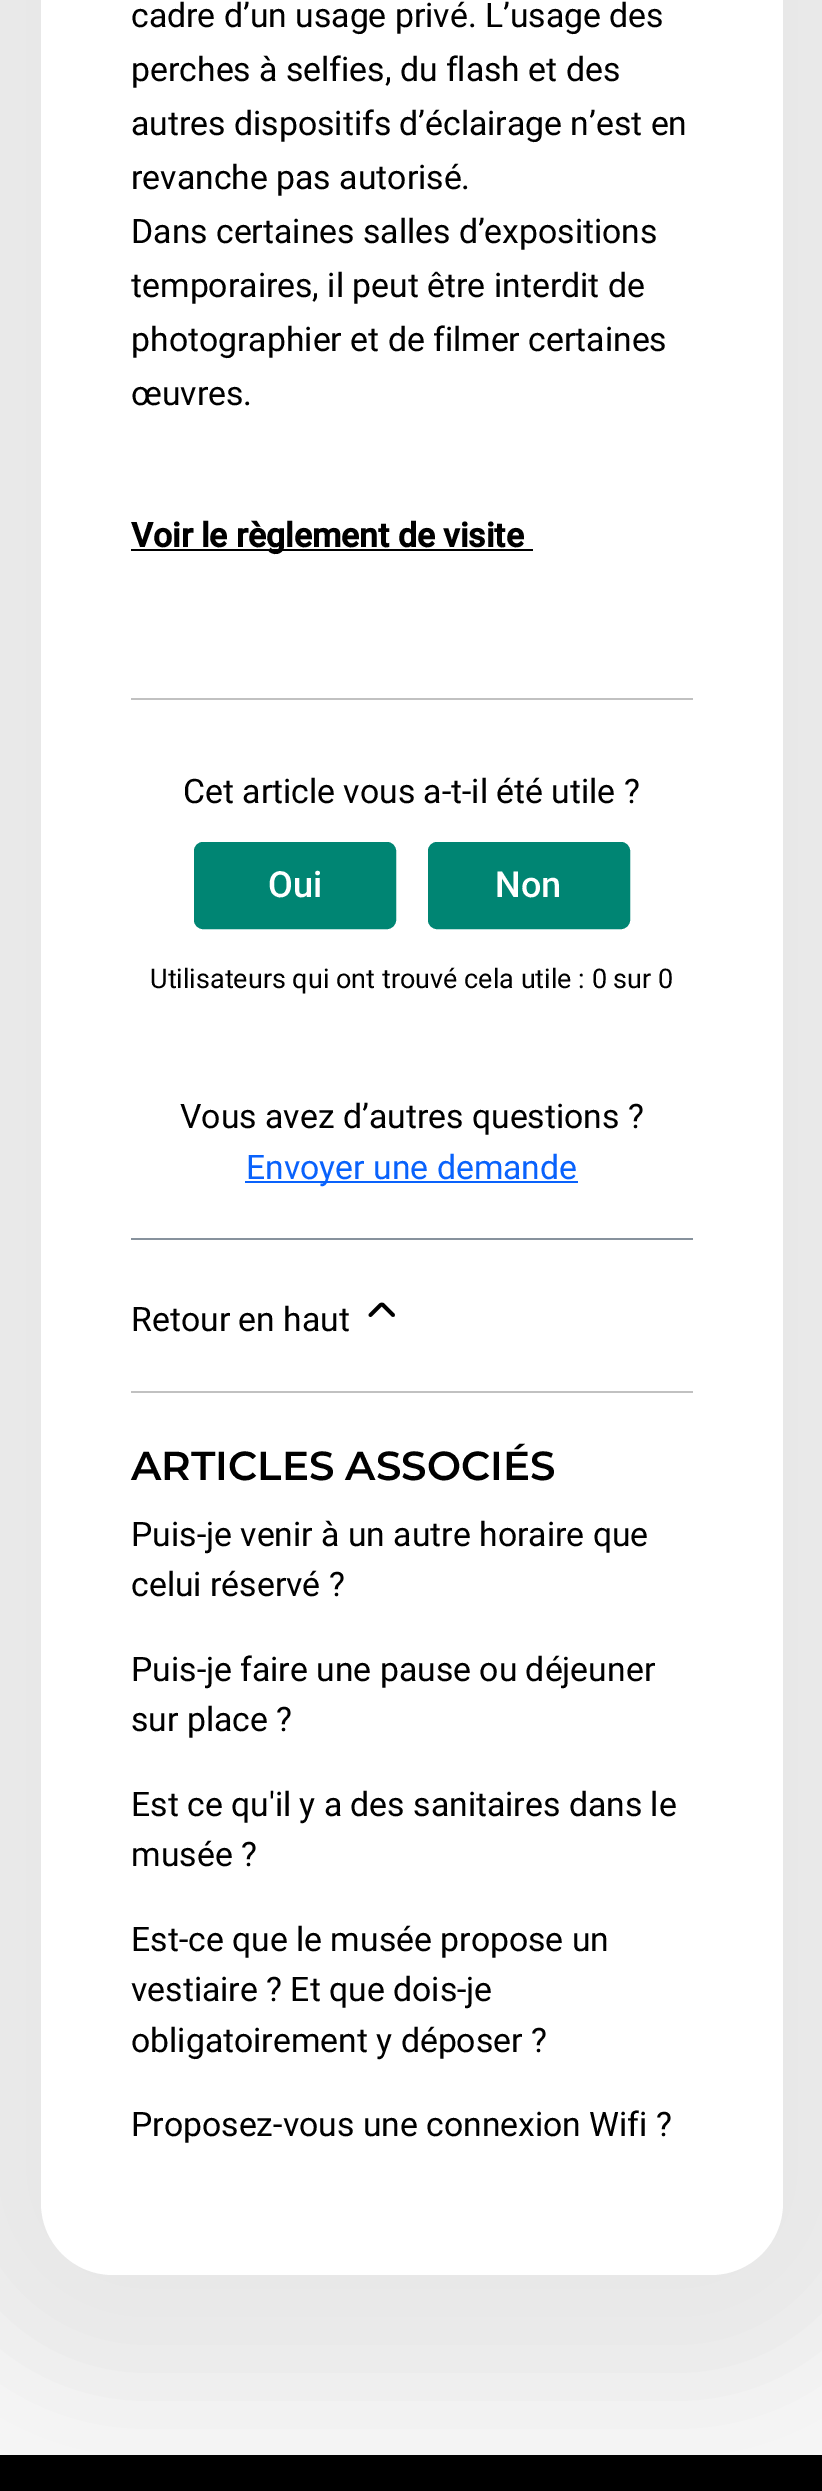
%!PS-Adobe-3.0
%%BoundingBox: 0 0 822 2491
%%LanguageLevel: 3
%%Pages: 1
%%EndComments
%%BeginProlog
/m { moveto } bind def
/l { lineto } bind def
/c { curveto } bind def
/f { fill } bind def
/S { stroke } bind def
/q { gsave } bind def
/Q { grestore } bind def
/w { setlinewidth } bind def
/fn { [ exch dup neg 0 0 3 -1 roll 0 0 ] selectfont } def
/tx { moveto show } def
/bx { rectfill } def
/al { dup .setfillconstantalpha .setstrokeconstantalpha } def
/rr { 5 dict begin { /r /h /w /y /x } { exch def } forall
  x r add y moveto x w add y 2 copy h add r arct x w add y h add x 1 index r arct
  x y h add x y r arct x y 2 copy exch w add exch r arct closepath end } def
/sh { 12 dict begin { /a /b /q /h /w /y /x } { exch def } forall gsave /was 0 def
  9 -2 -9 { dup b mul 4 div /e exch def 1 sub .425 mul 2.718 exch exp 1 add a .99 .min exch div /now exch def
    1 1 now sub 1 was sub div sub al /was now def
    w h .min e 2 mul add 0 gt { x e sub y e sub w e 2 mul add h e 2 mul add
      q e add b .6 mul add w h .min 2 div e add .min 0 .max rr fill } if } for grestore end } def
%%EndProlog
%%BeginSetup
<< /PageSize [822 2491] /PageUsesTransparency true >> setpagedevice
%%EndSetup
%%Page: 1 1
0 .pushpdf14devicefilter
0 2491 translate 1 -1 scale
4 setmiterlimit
0.965 setgray
0 0 822 2491 bx
0.863 setgray
-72 -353 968 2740 185 56 0.5 sh
1 setgray
41 -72 742 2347 72 rr f
/Roboto-Regular 33.75 fn
0 setgray
(cadre d’un usage privé. L’usage des) 131 27 tx
(perches à selfies, du flash et des) 131 81 tx
(autres dispositifs d’éclairage n’est en) 131 135 tx
(revanche pas autorisé.) 131 189 tx
(Dans certaines salles d’expositions) 131 243 tx
(temporaires, il peut être interdit de) 131 297 tx
(photographier et de filmer certaines) 131 351 tx
(œuvres.) 131 405 tx
131 549 402 2 bx
/Roboto-Bold 33.75 fn
(Voir le règlement de visite) 131 547 tx
0.757 setgray
131 698 562 2 bx
/Roboto-Regular 33.75 fn
0 setgray
(Cet article vous a-t-il été utile ?) 183 803 tx
0 0.522 0.451 setrgbcolor
195 843 200 85 8 rr q f Q
2 w
S
/Roboto-Medium 36 fn
1 setgray
(Oui) 268 897 tx
0 0.522 0.451 setrgbcolor
429 843 200 85 8 rr q f Q
S
1 setgray
(Non) 495 897 tx
/Roboto-Regular 27 fn
0 setgray
(Utilisateurs qui ont trouvé cela utile : 0 sur 0) 150 988 tx
/Roboto-Regular 33.75 fn
(Vous avez d’autres questions ?) 180 1128 tx
0.035 0.384 0.988 setrgbcolor
245 1181 333 2 bx
(Envoyer une demande) 246 1179 tx
0.529 0.573 0.616 setrgbcolor
131 1238 562 2 bx
0 setgray
(Retour en haut) 131 1331 tx
3.8 w
1 setlinecap
393 1315 m 383 1305 l 382.5 1304.5 381.5 1304.5 380.5 1305 c 370.5 1315 l S
0.757 setgray
131 1391 562 2 bx
/Montserrat-SemiBold 40.5 fn
0 setgray
(ARTICLES ASSOCIÉS) 131 1480 tx
/Roboto-Regular 33.75 fn
(Puis-je venir à un autre horaire que) 131 1546 tx
(celui réservé ?) 131 1596 tx
(Puis-je faire une pause ou déjeuner) 131 1681 tx
(sur place ?) 131 1731 tx
(Est ce qu'il y a des sanitaires dans le) 131 1816 tx
(musée ?) 131 1866 tx
(Est-ce que le musée propose un) 131 1951 tx
(vestiaire ? Et que dois-je) 131 2001 tx
(obligatoirement y déposer ?) 131 2052 tx
(Proposez-vous une connexion Wifi ?) 131 2136 tx
0 2455 822 36 bx
.poppdf14devicefilter showpage
%%EOF
